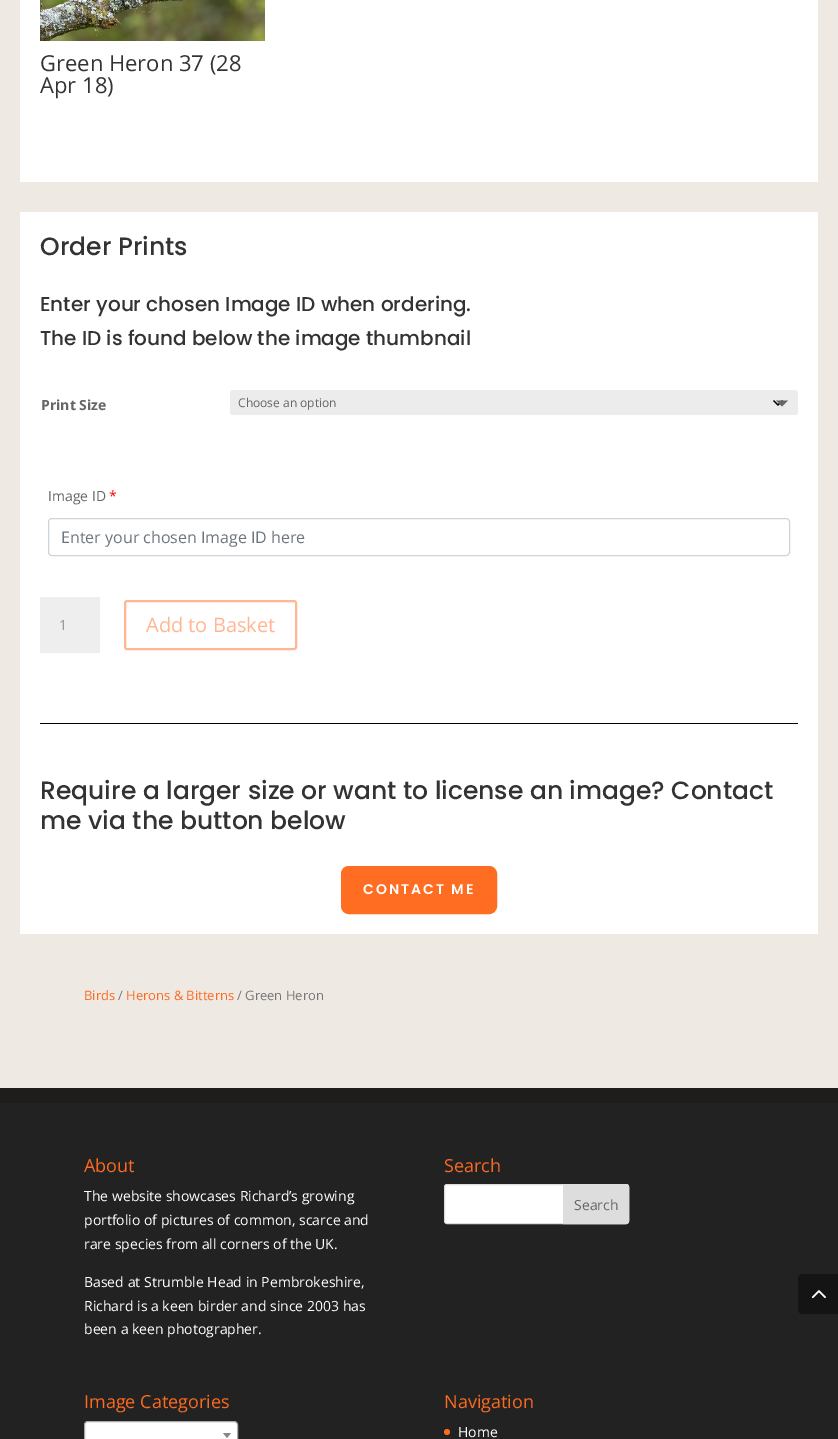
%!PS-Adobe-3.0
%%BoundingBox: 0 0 838 1439
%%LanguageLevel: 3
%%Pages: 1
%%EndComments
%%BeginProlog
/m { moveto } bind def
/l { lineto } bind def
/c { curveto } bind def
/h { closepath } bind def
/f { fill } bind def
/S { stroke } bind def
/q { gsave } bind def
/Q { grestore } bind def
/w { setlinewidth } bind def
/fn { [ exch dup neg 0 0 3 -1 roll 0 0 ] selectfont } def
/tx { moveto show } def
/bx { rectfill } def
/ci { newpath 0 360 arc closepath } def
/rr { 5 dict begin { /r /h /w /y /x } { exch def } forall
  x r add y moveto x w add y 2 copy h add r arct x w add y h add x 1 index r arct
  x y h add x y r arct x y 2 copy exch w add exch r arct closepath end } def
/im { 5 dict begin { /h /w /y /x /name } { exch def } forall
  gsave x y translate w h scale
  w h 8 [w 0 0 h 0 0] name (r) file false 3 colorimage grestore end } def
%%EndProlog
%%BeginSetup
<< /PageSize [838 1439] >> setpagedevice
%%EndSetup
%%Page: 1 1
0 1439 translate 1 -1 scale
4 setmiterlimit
0.133 setgray
0 0 838 1439 bx
0.937 0.914 0.894 setrgbcolor
0 0 838 1088 bx
1 setgray
20 0 798 182 bx
(image0.raw) 40 0 225 41 im
/OpenSans-Regular 22 fn
0.2 setgray
(Green Heron 37 \(28) 40 71 tx
(Apr 18\)) 40 93 tx
1 setgray
20 212 798 722 bx
/Poppins-Medium 25 fn
0.2 setgray
(Order Prints) 40 255 tx
/Poppins-Medium 20 fn
(Enter your chosen Image ID when ordering.) 40 311 tx
(The ID is found below the image thumbnail) 40 345 tx
/OpenSans-Bold 14 fn
0.4 setgray
(Print Size) 41 410 tx
0.925 setgray
230 390 568 25 3 rr f
0 setgray
1.3 w
1 setlinecap
1 setlinejoin
774 401 m 778 405 l 782 401 l S
/OpenSans-Regular 12 fn
0.4 setgray
(Choose an option) 238 407 tx
776 400.5 m 788 400.5 l 782 406.5 l h f
/OpenSans-Regular 14 fn
(Image ID) 48 501 tx
1 0 0 setrgbcolor
(*) 109 501 tx
0.808 0.831 0.855 setrgbcolor
1 w
0 setlinecap
0 setlinejoin
48.5 518.5 741 37 3.5 rr S
/OpenSans-Regular 16 fn
0.424 0.459 0.49 setrgbcolor
(Enter your chosen Image ID here) 61 543 tx
0.933 setgray
40 597 60 56 bx
/OpenSans-Regular 14 fn
0.6 setgray
(1) 59 630 tx
1 0.714 0.569 setrgbcolor
2 w
125 601 171 48 2 rr S
/OpenSans-Regular 20 fn
(Add to Basket) 146 632 tx
0 setgray
40 723 758 1 bx
/Poppins-Medium 25 fn
0.2 setgray
(Require a larger size or want to license an image? Contact) 40 799 tx
(me via the button below) 40 829 tx
1 0.427 0.133 setrgbcolor
345 870 148 40 4 rr q f Q
8 w
S
/Poppins-SemiBold 14 fn
1 setgray
363 894 m 2 0 (CONTACT ME) ashow
/OpenSans-Regular 13 fn
0.988 0.416 0.125 setrgbcolor
(Birds) 84 1000 tx
0.463 setgray
(/) 118 1000 tx
0.988 0.416 0.125 setrgbcolor
(Herons & Bitterns) 126 1000 tx
0.463 setgray
(/ Green Heron) 237 1000 tx
0.118 0.114 0.11 setrgbcolor
0 1088 838 15 bx
/OpenSans-Regular 18 fn
0.988 0.416 0.125 setrgbcolor
(About) 84 1172 tx
/OpenSans-Regular 14 fn
1 setgray
(The website showcases Richard’s growing) 84 1201 tx
(portfolio of pictures of common, scarce and) 84 1225 tx
(rare species from all corners of the UK.) 84 1249 tx
(Based at Strumble Head in Pembrokeshire,) 84 1287 tx
(Richard is a keen birder and since 2003 has) 84 1311 tx
(been a keen photographer.) 84 1334 tx
/OpenSans-Regular 18 fn
0.988 0.416 0.125 setrgbcolor
(Search) 444 1172 tx
1 setgray
444.5 1184.5 184 39 2.5 rr q f Q
0.867 setgray
1 w
S
563.5 1184.5 m 626 1184.5 l 627.5 1184.5 628.5 1185.5 628.5 1187 c 628.5 1221 l 628.5 1222.5 627.5 1223.5 626 1223.5 c 563.5 1223.5 l h q f Q
S
/OpenSans-Regular 14 fn
0.4 setgray
(Search) 574 1210 tx
/OpenSans-Regular 18 fn
0.988 0.416 0.125 setrgbcolor
(Image Categories) 84 1408 tx
1 setgray
84.5 1421.5 153 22 3.5 rr q f Q
0.667 setgray
S
0.533 setgray
223 1433 m 231 1433 l 227 1438 l h f
0.988 0.416 0.125 setrgbcolor
(Navigation) 444 1408 tx
447 1432 3 ci f
/OpenSans-Regular 14 fn
1 setgray
(Home) 458 1437 tx
0.078 setgray
803 1274 m 838 1274 l 838 1314 l 803 1314 l 800 1314 798 1312 798 1309 c 798 1279 l 798 1276 800 1274 803 1274 c h f
(image1.raw) 811 1290 15 9 im
showpage
%%EOF
